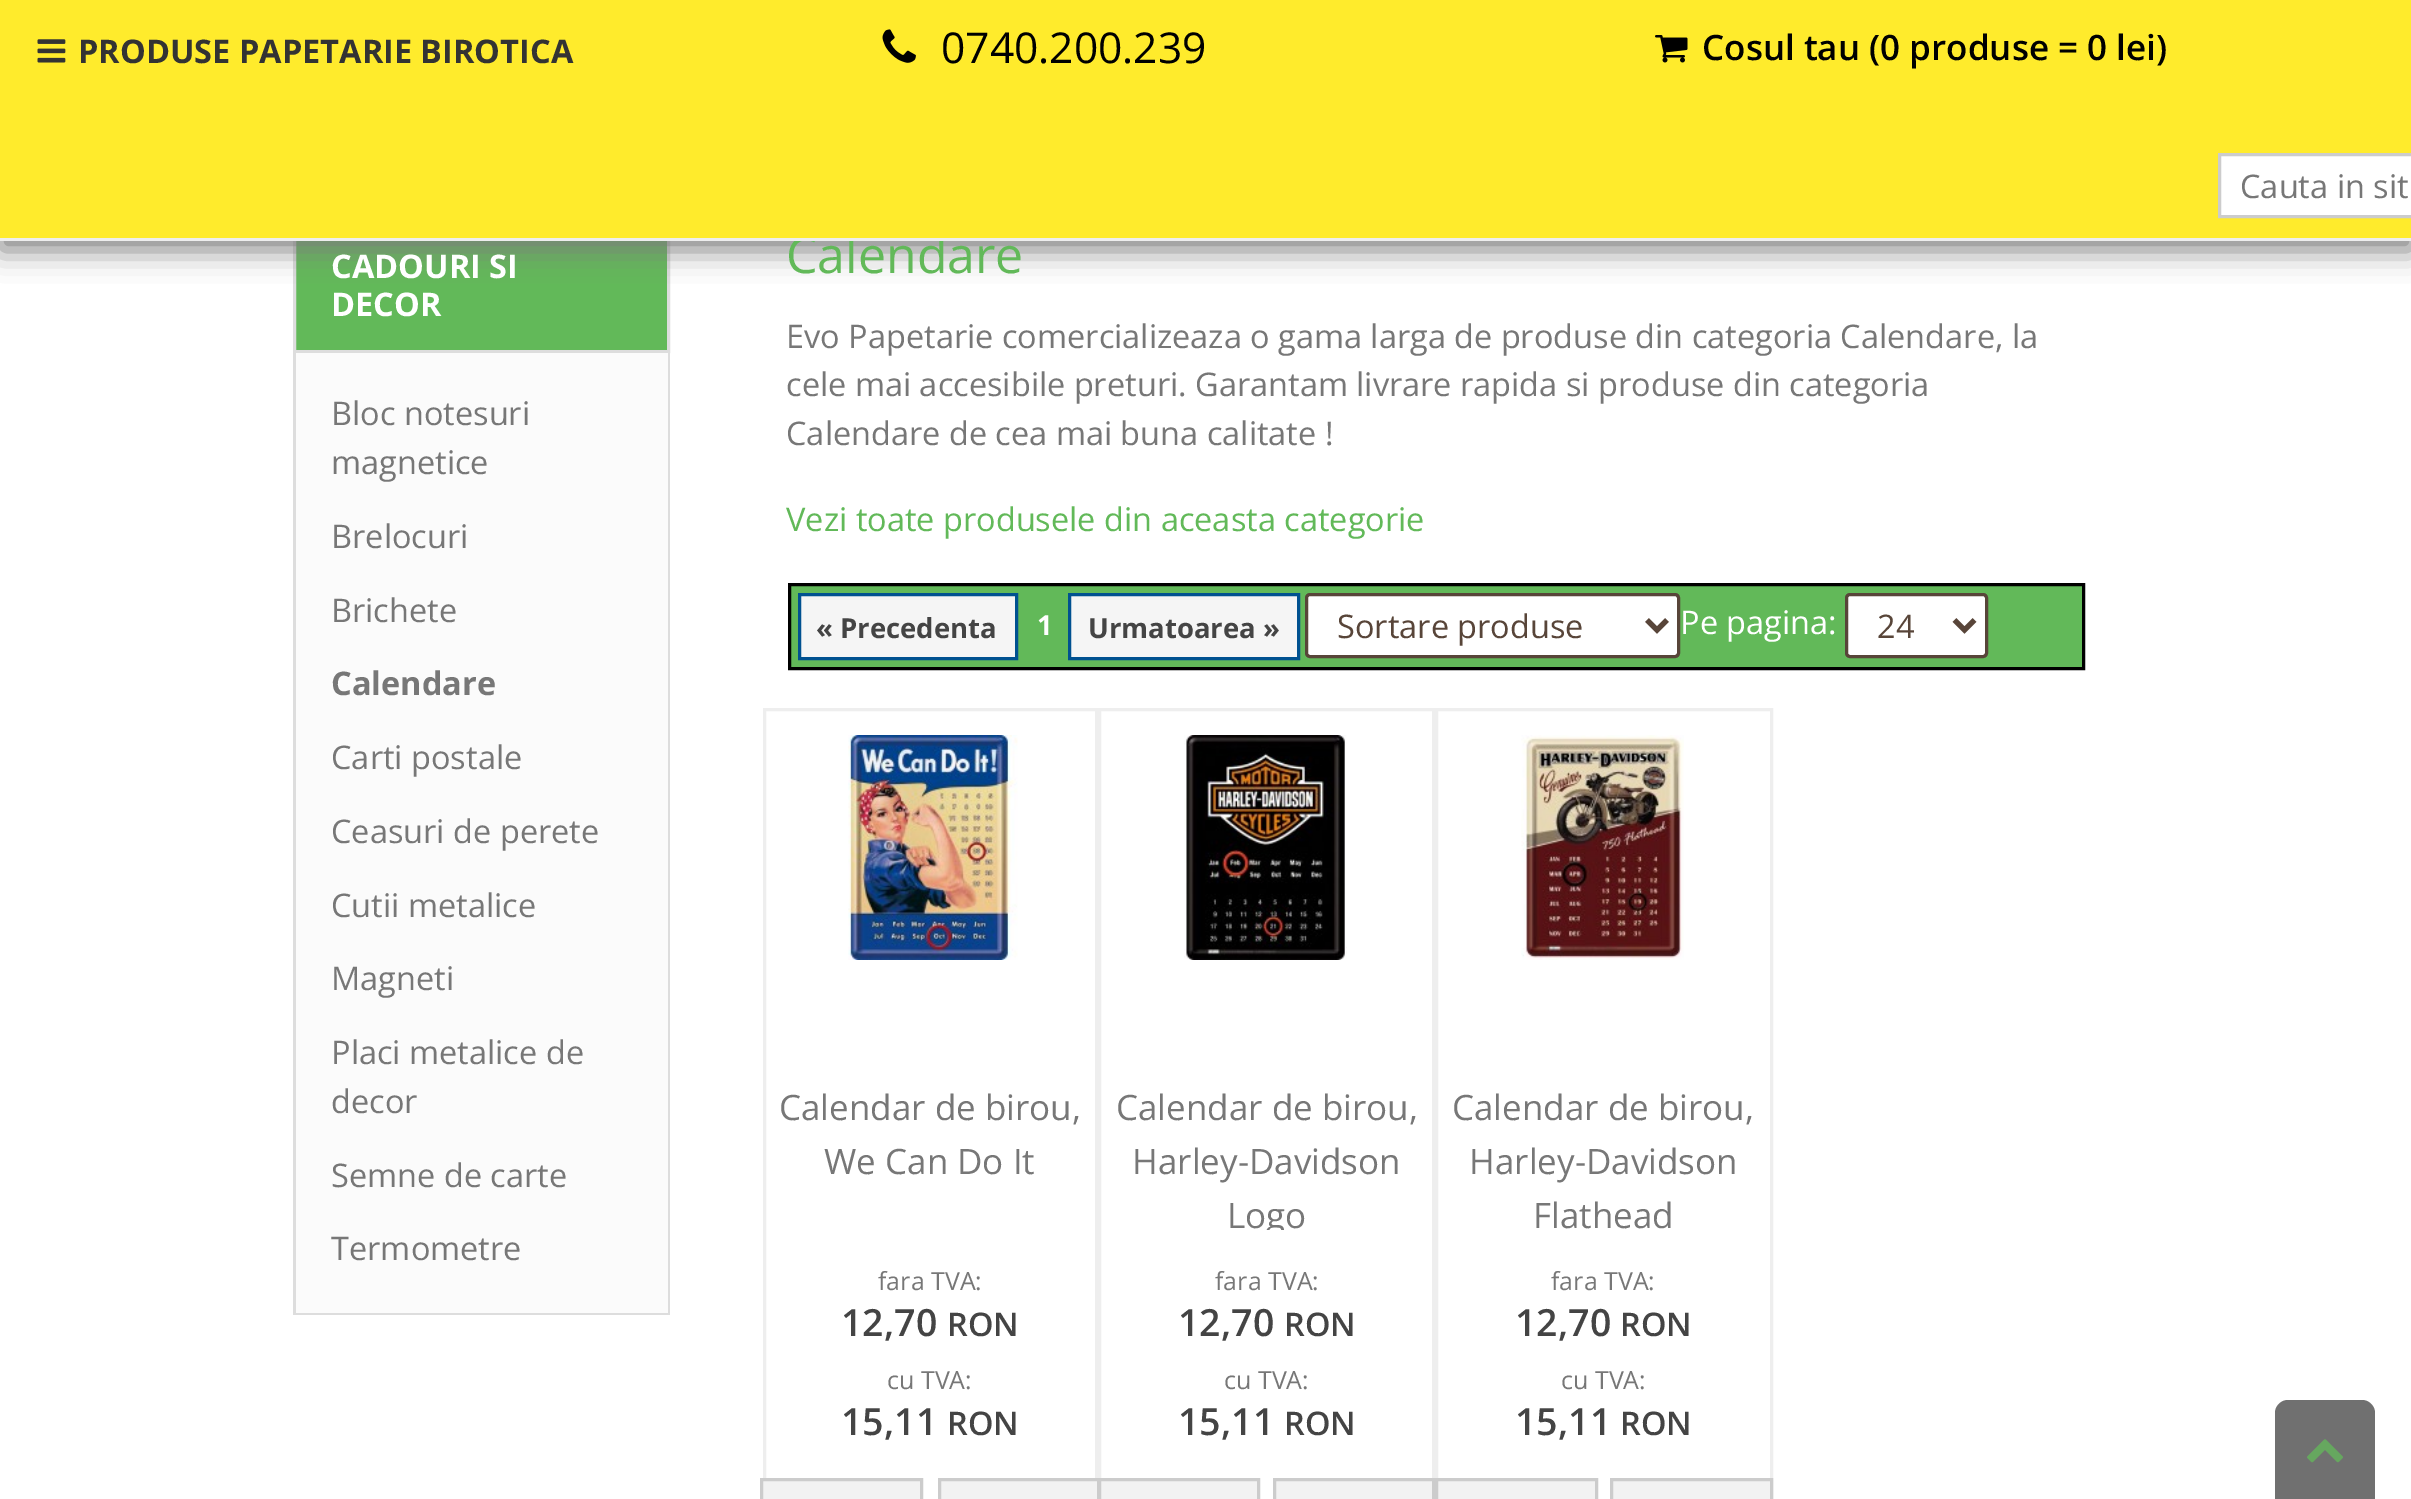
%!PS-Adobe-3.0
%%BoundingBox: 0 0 2411 1499
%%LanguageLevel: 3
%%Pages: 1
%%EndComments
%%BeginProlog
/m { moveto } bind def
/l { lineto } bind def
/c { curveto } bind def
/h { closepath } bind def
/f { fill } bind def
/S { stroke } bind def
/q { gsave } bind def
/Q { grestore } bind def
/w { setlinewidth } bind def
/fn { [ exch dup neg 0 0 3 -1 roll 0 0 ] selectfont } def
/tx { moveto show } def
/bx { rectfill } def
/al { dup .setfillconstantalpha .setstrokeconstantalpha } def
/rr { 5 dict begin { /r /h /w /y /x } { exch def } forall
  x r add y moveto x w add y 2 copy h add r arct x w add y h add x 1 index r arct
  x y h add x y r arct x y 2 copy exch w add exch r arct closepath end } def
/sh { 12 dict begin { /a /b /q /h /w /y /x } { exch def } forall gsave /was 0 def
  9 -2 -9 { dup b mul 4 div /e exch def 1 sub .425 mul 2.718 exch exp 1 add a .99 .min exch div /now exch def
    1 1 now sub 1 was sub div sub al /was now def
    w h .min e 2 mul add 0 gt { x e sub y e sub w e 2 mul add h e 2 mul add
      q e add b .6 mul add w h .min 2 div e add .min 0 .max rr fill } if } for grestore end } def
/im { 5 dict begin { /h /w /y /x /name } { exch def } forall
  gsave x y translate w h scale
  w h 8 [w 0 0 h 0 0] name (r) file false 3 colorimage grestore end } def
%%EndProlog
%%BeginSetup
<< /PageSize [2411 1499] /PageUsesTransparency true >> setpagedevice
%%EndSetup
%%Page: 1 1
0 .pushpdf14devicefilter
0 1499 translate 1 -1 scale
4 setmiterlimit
1 setgray
0 0 2411 1499 bx
0.384 0.725 0.349 setrgbcolor
296 241 371 109 bx
0.867 setgray
3 w
294.5 221.5 374 130 rectstroke
0.49 setgray
0 10 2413 240 0 15 1 sh
/OpenSans-Regular 50 fn
0.384 0.725 0.349 setrgbcolor
(Calendare) 786 273 tx
1 0.922 0.173 setrgbcolor
0 0 2411 238 bx
0.933 setgray
0 238 2411 3 bx
(image0.raw) 37 39 29 24 im
/OpenSans-Bold 32.5 fn
0.2 setgray
(PRODUSE PAPETARIE BIROTICA) 78 63 tx
(image1.raw) 882 29 34 34 im
/OpenSans-Regular 42.5 fn
0 setgray
(0740.200.239) 941 63 tx
(image2.raw) 1655 35 33 28 im
/OpenSans-SemiBold 35 fn
(Cosul tau \(0 produse = 0 lei\)) 1702 60 tx
1 setgray
2219.5 154.5 m 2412.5 154.5 l 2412.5 216.5 l 2219.5 216.5 l h q f Q
0.8 setgray
S
/OpenSans-Regular 32.5 fn
0.467 setgray
(Cauta in sit) 2240 198 tx
/OpenSans-Bold 32.5 fn
1 setgray
(CADOURI SI) 331 278 tx
(DECOR) 331 316 tx
0.984 setgray
296 353 372 960 bx
0.867 setgray
668 353 2 962 bx
293 1313 377 2 bx
293 353 3 962 bx
/OpenSans-Regular 32.5 fn
0.467 setgray
(Bloc notesuri) 331 425 tx
(magnetice) 331 474 tx
(Brelocuri) 331 548 tx
(Brichete) 331 622 tx
/OpenSans-Bold 32.5 fn
(Calendare) 331 695 tx
/OpenSans-Regular 32.5 fn
(Carti postale) 331 769 tx
(Ceasuri de perete) 331 843 tx
(Cutii metalice) 331 917 tx
(Magneti) 331 990 tx
(Placi metalice de) 331 1064 tx
(decor) 331 1113 tx
(Semne de carte) 331 1187 tx
(Termometre) 331 1260 tx
(Evo Papetarie comercializeaza o gama larga de produse din categoria Calendare, la) 786 348 tx
(cele mai accesibile preturi. Garantam livrare rapida si produse din categoria) 786 396 tx
(Calendare de cea mai buna calitate !) 786 445 tx
0.384 0.725 0.349 setrgbcolor
(Vezi toate produsele din aceasta categorie) 786 531 tx
789.5 584.5 m 2083.5 584.5 l 2083.5 668.5 l 789.5 668.5 l h q f Q
0 setgray
S
0.961 setgray
799.5 594.5 m 1016.5 594.5 l 1016.5 658.5 l 799.5 658.5 l h q f Q
0 0.318 0.565 setrgbcolor
S
/OpenSans-Bold 27.5 fn
0.267 setgray
(« Precedenta) 816 638 tx
1 setgray
(1) 1037 635 tx
0.961 setgray
1069.5 594.5 m 1298.5 594.5 l 1298.5 658.5 l 1069.5 658.5 l h q f Q
0 0.318 0.565 setrgbcolor
S
0.267 setgray
(Urmatoarea ») 1088 638 tx
1 setgray
1306.5 594.5 372 62 3.5 rr q f Q
0.345 0.271 0.224 setrgbcolor
S
5 w
1647 620 m 1657 630 l 1667 620 l S
/OpenSans-Regular 32.5 fn
(Sortare produse) 1337 638 tx
1 setgray
(Pe pagina:) 1680 634 tx
1846.5 594.5 140 62 3.5 rr q f Q
0.345 0.271 0.224 setrgbcolor
3 w
S
5 w
1954.5 620 m 1964.5 630 l 1974.5 620 l S
(24) 1877 638 tx
0.933 setgray
3 w
764.5 709.5 332 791 rectstroke
(image3.raw) 848 735 170 225 im
/OpenSans-Regular 35 fn
0.467 setgray
(Calendar de birou,) 779 1120 tx
(We Can Do It) 824 1174 tx
/OpenSans-Regular 25 fn
(fara TVA:) 878 1290 tx
/OpenSans-SemiBold 37.5 fn
0.267 setgray
(12,70) 841 1336 tx
/OpenSans-SemiBold 32.5 fn
(RON) 947 1336 tx
/OpenSans-Regular 25 fn
0.467 setgray
(cu TVA:) 887 1389 tx
/OpenSans-SemiBold 37.5 fn
0.267 setgray
(15,11) 841 1435 tx
/OpenSans-SemiBold 32.5 fn
(RON) 947 1435 tx
0.949 setgray
761.5 1479.5 m 921.5 1479.5 l 921.5 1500.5 l 761.5 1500.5 l h q f Q
0.8 setgray
S
0.933 setgray
1099.5 709.5 334 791 rectstroke
0.949 setgray
939.5 1479.5 m 1098.5 1479.5 l 1098.5 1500.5 l 939.5 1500.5 l h q f Q
0.8 setgray
S
(image4.raw) 1184 735 163 225 im
/OpenSans-Regular 35 fn
0.467 setgray
(Calendar de birou,) 1116 1120 tx
(Harley-Davidson) 1132 1174 tx
q
1110 1080 313 150 rectclip
(Logo) 1227 1228 tx
Q
/OpenSans-Regular 25 fn
(fara TVA:) 1215 1290 tx
/OpenSans-SemiBold 37.5 fn
0.267 setgray
(12,70) 1178 1336 tx
/OpenSans-SemiBold 32.5 fn
(RON) 1284 1336 tx
/OpenSans-Regular 25 fn
0.467 setgray
(cu TVA:) 1224 1389 tx
/OpenSans-SemiBold 37.5 fn
0.267 setgray
(15,11) 1178 1435 tx
/OpenSans-SemiBold 32.5 fn
(RON) 1284 1435 tx
0.949 setgray
1099.5 1479.5 m 1258.5 1479.5 l 1258.5 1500.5 l 1099.5 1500.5 l h q f Q
0.8 setgray
S
0.949 setgray
1274.5 1479.5 m 1433.5 1479.5 l 1433.5 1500.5 l 1274.5 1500.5 l h q f Q
0.8 setgray
S
0.933 setgray
1436.5 709.5 335 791 rectstroke
(image5.raw) 1521 735 163 225 im
/OpenSans-Regular 35 fn
0.467 setgray
(Calendar de birou,) 1452 1120 tx
(Harley-Davidson) 1469 1174 tx
(Flathead) 1533 1228 tx
/OpenSans-Regular 25 fn
(fara TVA:) 1551 1290 tx
/OpenSans-SemiBold 37.5 fn
0.267 setgray
(12,70) 1515 1336 tx
/OpenSans-SemiBold 32.5 fn
(RON) 1620 1336 tx
/OpenSans-Regular 25 fn
0.467 setgray
(cu TVA:) 1561 1389 tx
/OpenSans-SemiBold 37.5 fn
0.267 setgray
(15,11) 1515 1435 tx
/OpenSans-SemiBold 32.5 fn
(RON) 1620 1435 tx
0.949 setgray
1436.5 1479.5 m 1596.5 1479.5 l 1596.5 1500.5 l 1436.5 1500.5 l h q f Q
0.8 setgray
S
0.949 setgray
1611.5 1479.5 m 1771.5 1479.5 l 1771.5 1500.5 l 1611.5 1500.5 l h q f Q
0.8 setgray
S
0.439 setgray
2288 1400 m 2362 1400 l 2369 1400 2375 1406 2375 1413 c 2375 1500 l 2275 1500 l 2275 1413 l 2275 1406 2281 1400 2288 1400 c h f
(image6.raw) 2307 1439 36 24 im
.poppdf14devicefilter showpage
%%EOF
